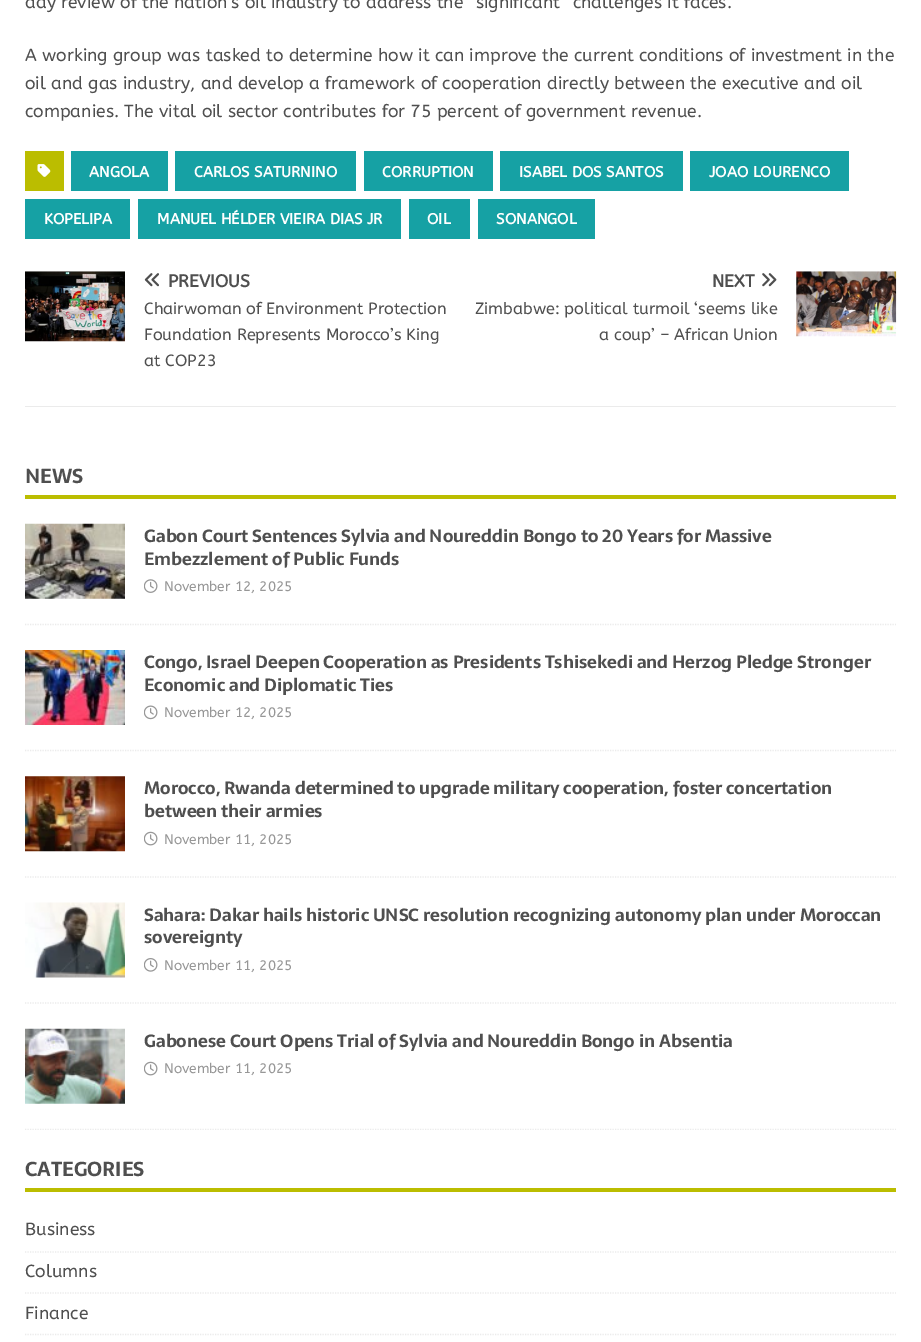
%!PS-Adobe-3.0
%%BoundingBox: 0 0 921 1342
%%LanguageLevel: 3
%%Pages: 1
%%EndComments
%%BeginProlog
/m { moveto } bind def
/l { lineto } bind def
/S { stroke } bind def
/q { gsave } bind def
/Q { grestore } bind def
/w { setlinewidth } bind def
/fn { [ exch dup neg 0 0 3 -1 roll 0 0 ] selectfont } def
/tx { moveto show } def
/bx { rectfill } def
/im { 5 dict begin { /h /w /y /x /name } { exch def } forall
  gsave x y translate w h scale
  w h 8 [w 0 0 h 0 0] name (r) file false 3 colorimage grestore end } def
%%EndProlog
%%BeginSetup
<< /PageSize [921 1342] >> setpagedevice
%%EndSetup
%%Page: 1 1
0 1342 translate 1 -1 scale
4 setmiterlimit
1 setgray
0 0 921 1342 bx
/ABeeZee-Regular 17.5 fn
0.31 setgray
(day review of the nation’s oil industry to address the “significant” challenges it faces.) 25 8 tx
(A working group was tasked to determine how it can improve the current conditions of investment in the) 25 61 tx
(oil and gas industry, and develop a framework of cooperation directly between the executive and oil) 25 89 tx
(companies. The vital oil sector contributes for 75 percent of government revenue.) 25 117 tx
0.733 0.741 0 setrgbcolor
25 151 39 40 bx
(image0.raw) 37 164 14 13 im
0.086 0.631 0.643 setrgbcolor
71 151 97 40 bx
/ABeeZee-Bold 15 fn
1 setgray
(ANGOLA) 89 177 tx
0.086 0.631 0.643 setrgbcolor
175 151 181 40 bx
1 setgray
(CARLOS SATURNINO) 194 177 tx
0.086 0.631 0.643 setrgbcolor
364 151 129 40 bx
1 setgray
(CORRUPTION) 382 177 tx
0.086 0.631 0.643 setrgbcolor
500 151 183 40 bx
1 setgray
(ISABEL DOS SANTOS) 519 177 tx
0.086 0.631 0.643 setrgbcolor
690 151 159 40 bx
1 setgray
(JOAO LOURENCO) 709 177 tx
0.086 0.631 0.643 setrgbcolor
25 199 105 40 bx
1 setgray
(KOPELIPA) 44 224 tx
0.086 0.631 0.643 setrgbcolor
138 199 263 40 bx
1 setgray
(MANUEL HÉLDER VIEIRA DIAS JR) 157 224 tx
0.086 0.631 0.643 setrgbcolor
409 199 61 40 bx
1 setgray
(OIL) 427 224 tx
0.086 0.631 0.643 setrgbcolor
478 199 117 40 bx
1 setgray
(SONANGOL) 496 224 tx
0.922 setgray
25 406 871 1 bx
(image1.raw) 25 271 100 71 im
(image2.raw) 144 273 15 14 im
/ABeeZee-Bold 17.5 fn
0.31 setgray
(PREVIOUS) 168 287 tx
/ABeeZee-Regular 16.25 fn
(Chairwoman of Environment Protection) 144 314 tx
(Foundation Represents Morocco’s King) 144 340 tx
(at COP23) 144 366 tx
/ABeeZee-Bold 17.5 fn
(NEXT) 712 287 tx
(image3.raw) 762 273 15 14 im
(image4.raw) 796 271 101 66 im
/ABeeZee-Regular 16.25 fn
(Zimbabwe: political turmoil ‘seems like) 475 314 tx
(a coup’ – African Union) 599 340 tx
0.733 0.741 0 setrgbcolor
25 495 871 4 bx
/Sarala-Bold 20 fn
0.31 setgray
(NEWS) 25 483 tx
0.922 setgray
1.2 w
[1.25 1.25] 0 setdash
25 624.5 m 896 624.5 l S
(image5.raw) 25 523 100 76 im
/Sarala-Bold 17.5 fn
0.31 setgray
(Gabon Court Sentences Sylvia and Noureddin Bongo to 20 Years for Massive) 144 542 tx
(Embezzlement of Public Funds) 144 565 tx
(image6.raw) 144 579 14 14 im
/ABeeZee-Regular 13.75 fn
0.592 setgray
(November 12, 2025) 164 591 tx
0.922 setgray
25 750.5 m 896 750.5 l S
(image7.raw) 25 650 100 75 im
/Sarala-Bold 17.5 fn
0.31 setgray
(Congo, Israel Deepen Cooperation as Presidents Tshisekedi and Herzog Pledge Stronger) 144 668 tx
(Economic and Diplomatic Ties) 144 691 tx
(image8.raw) 144 705 14 15 im
/ABeeZee-Regular 13.75 fn
0.592 setgray
(November 12, 2025) 164 717 tx
0.922 setgray
25 877 m 896 877 l S
(image9.raw) 25 776 100 76 im
/Sarala-Bold 17.5 fn
0.31 setgray
(Morocco, Rwanda determined to upgrade military cooperation, foster concertation) 144 794 tx
(between their armies) 144 817 tx
(image10.raw) 144 831 14 15 im
/ABeeZee-Regular 13.75 fn
0.592 setgray
(November 11, 2025) 164 844 tx
0.922 setgray
25 1003 m 896 1003 l S
(image11.raw) 25 902 100 76 im
/Sarala-Bold 17.5 fn
0.31 setgray
(Sahara: Dakar hails historic UNSC resolution recognizing autonomy plan under Moroccan) 144 921 tx
(sovereignty) 144 943 tx
(image12.raw) 144 958 14 14 im
/ABeeZee-Regular 13.75 fn
0.592 setgray
(November 11, 2025) 164 970 tx
q
25 464 871 666 rectclip
0.922 setgray
25 1129.5 m 896 1129.5 l S
Q
(image13.raw) 25 1028 100 76 im
/Sarala-Bold 17.5 fn
0.31 setgray
(Gabonese Court Opens Trial of Sylvia and Noureddin Bongo in Absentia) 144 1047 tx
(image10.raw) 144 1061 14 15 im
/ABeeZee-Regular 13.75 fn
0.592 setgray
(November 11, 2025) 164 1073 tx
0.733 0.741 0 setrgbcolor
25 1188 871 4 bx
/Sarala-Bold 20 fn
0.31 setgray
(CATEGORIES) 25 1176 tx
0.922 setgray
25 1252 m 896 1252 l S
/ABeeZee-Regular 17.5 fn
0.31 setgray
(Business) 25 1235 tx
0.922 setgray
25 1293 m 896 1293 l S
0.31 setgray
(Columns) 25 1277 tx
0.922 setgray
25 1334.5 m 896 1334.5 l S
0.31 setgray
(Finance) 25 1319 tx
showpage
%%EOF
